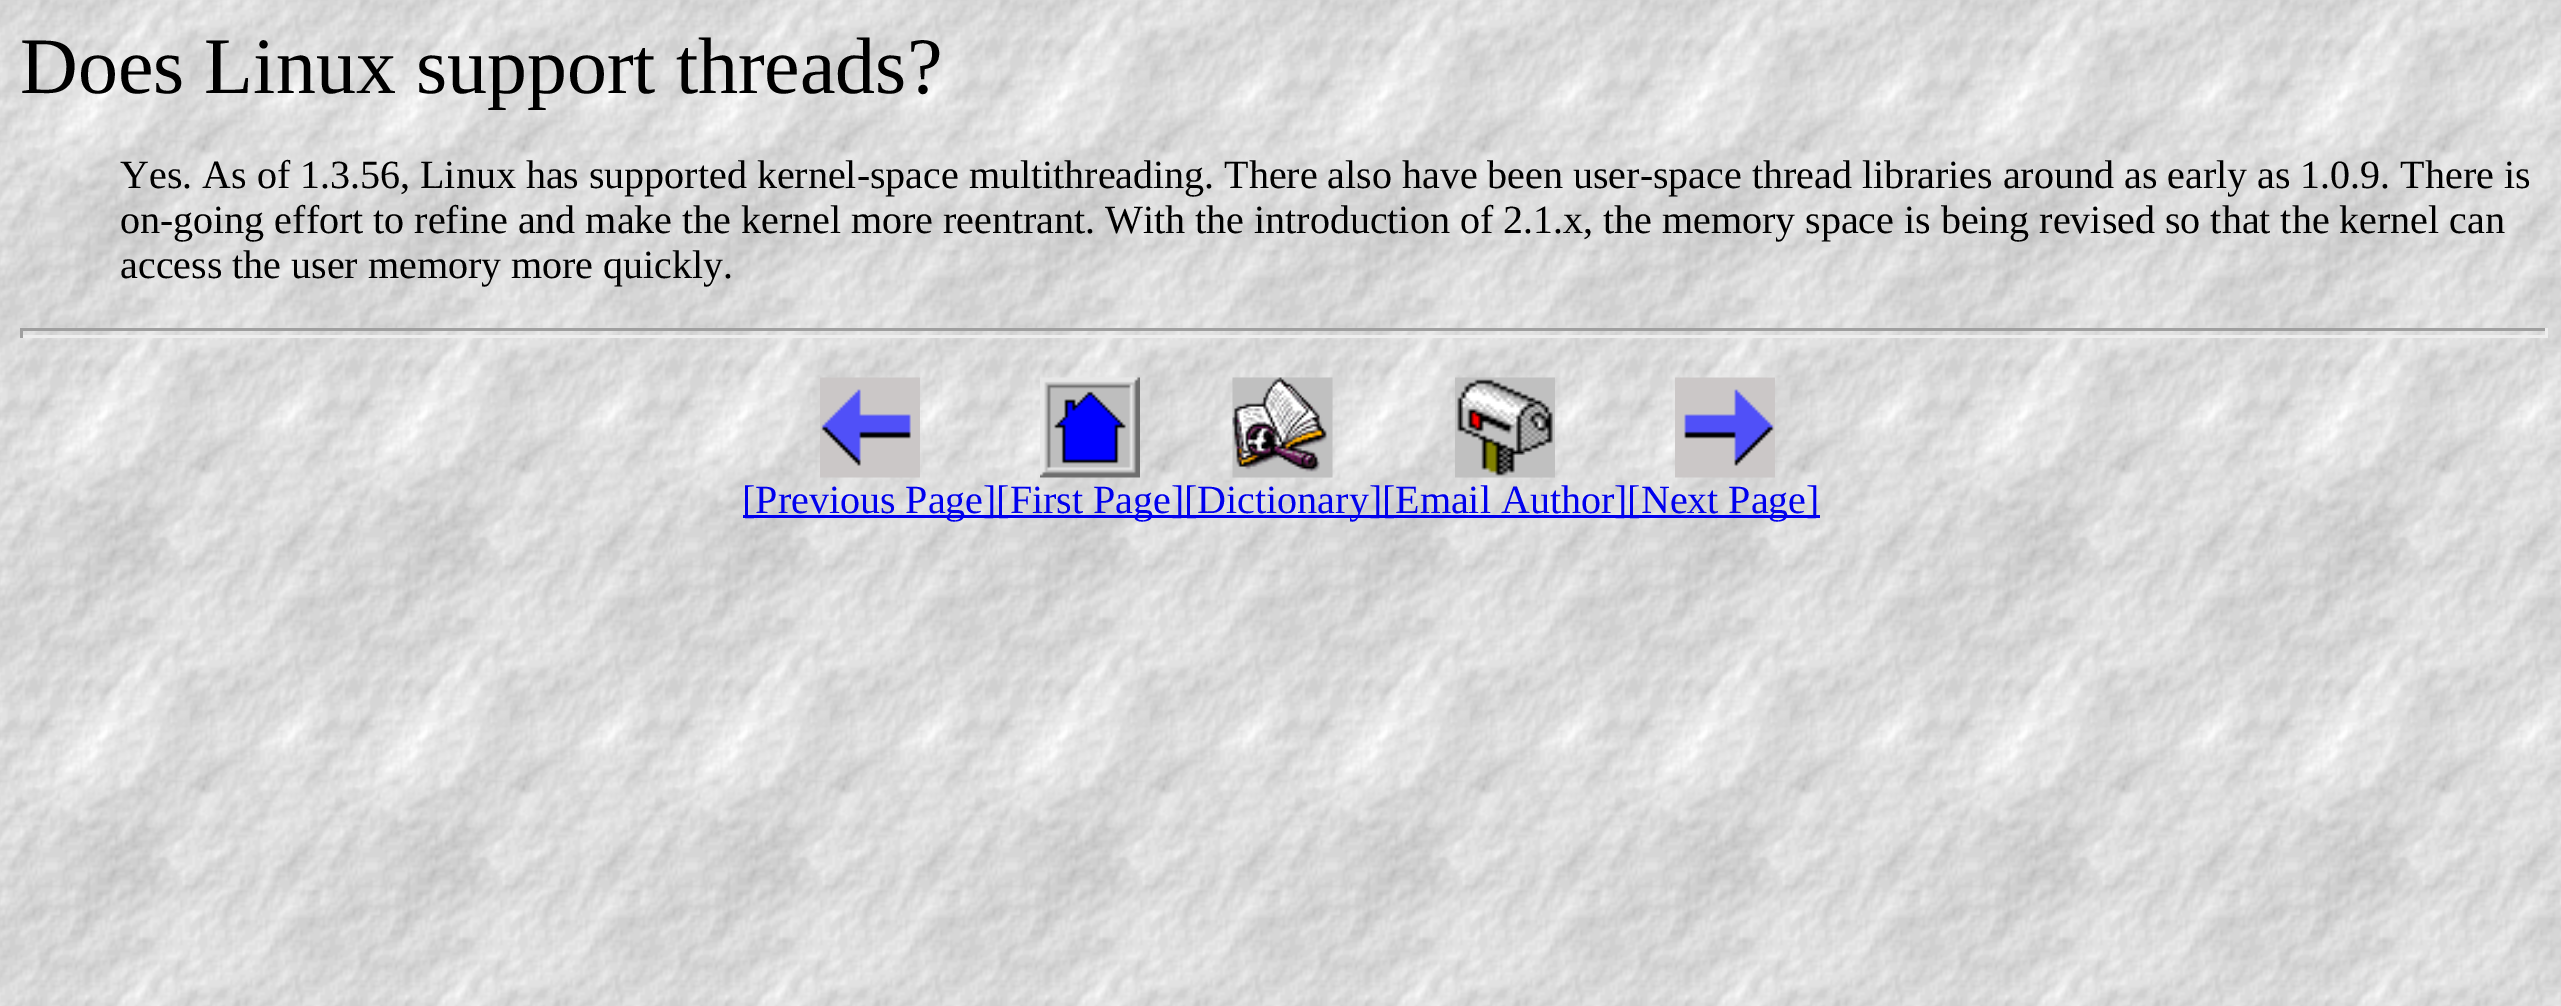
%!PS-Adobe-3.0
%%BoundingBox: 0 0 2561 1006
%%LanguageLevel: 3
%%Pages: 1
%%EndComments
%%BeginProlog
/fn { [ exch dup neg 0 0 3 -1 roll 0 0 ] selectfont } def
/tx { moveto show } def
/bx { rectfill } def
/im { 5 dict begin { /h /w /y /x /name } { exch def } forall
  gsave x y translate w h scale
  w h 8 [w 0 0 h 0 0] name (r) file false 3 colorimage grestore end } def
%%EndProlog
%%BeginSetup
<< /PageSize [2561 1006] >> setpagedevice
%%EndSetup
%%Page: 1 1
0 1006 translate 1 -1 scale
4 setmiterlimit
1 setgray
0 0 2561 1006 bx
(image0.raw) 0 0 2561 1006 im
/LiberationSerif-Regular 80 fn
0 setgray
(Does Linux support threads?) 20 93 tx
/LiberationSerif-Regular 40 fn
(Yes. As of 1.3.56, Linux has supported kernel-space multithreading. There also have been user-space thread libraries around as early as 1.0.9. There is) 120 188 tx
(on-going effort to refine and make the kernel more reentrant. With the introduction of 2.1.x, the memory space is being revised so that the kernel can) 120 233 tx
(access the user memory more quickly.) 120 278 tx
0.624 setgray
20 328 2528 3 bx
0.933 setgray
2545 328 3 10 bx
20 335 2528 3 bx
0.624 setgray
20 328 3 10 bx
(image1.raw) 820 377 100 101 im
(image2.raw) 1040 377 100 101 im
(image3.raw) 1232 377 101 101 im
(image4.raw) 1455 377 100 101 im
(image5.raw) 1675 377 100 101 im
0 0 0.933 setrgbcolor
743 515 1077 3 bx
([Previous Page][First Page][Dictionary][Email Author][Next Page]) 742 513 tx
showpage
%%EOF
